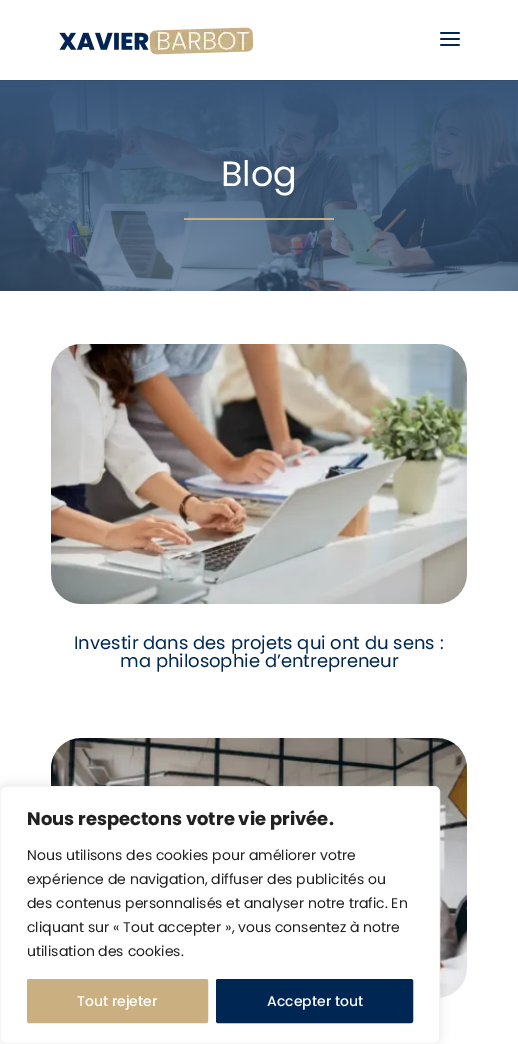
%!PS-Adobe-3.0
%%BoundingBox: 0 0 518 1044
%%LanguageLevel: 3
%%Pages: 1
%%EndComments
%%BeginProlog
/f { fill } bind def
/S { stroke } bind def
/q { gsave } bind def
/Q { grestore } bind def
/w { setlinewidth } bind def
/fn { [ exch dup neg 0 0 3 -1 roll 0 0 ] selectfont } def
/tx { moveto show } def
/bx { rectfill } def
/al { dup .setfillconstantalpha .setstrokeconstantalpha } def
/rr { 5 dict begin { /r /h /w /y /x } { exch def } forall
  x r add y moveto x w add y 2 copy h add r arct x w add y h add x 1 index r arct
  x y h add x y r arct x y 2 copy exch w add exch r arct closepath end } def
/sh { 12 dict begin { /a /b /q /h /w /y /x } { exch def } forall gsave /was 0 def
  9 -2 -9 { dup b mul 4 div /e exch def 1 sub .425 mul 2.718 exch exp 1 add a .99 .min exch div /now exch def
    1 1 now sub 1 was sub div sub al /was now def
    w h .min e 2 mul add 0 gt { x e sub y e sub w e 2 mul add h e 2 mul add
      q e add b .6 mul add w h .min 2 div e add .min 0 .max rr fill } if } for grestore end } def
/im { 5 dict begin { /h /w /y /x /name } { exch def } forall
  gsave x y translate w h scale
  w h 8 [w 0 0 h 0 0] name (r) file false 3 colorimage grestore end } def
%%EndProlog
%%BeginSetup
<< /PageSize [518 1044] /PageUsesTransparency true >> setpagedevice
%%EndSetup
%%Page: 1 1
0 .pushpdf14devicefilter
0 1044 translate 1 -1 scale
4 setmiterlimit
1 setgray
0 0 518 1044 bx
0.196 0.302 0.427 setrgbcolor
0 80 518 1 bx
(image0.raw) 59 27 195 28 im
(image1.raw) 440 32 20 14 im
(image2.raw) 0 81 518 210 im
/Poppins-Regular 35 fn
1 setgray
(Blog) 221 186 tx
0.792 0.69 0.502 setrgbcolor
184 218 150 2 bx
(image3.raw) 51 344 416 260 im
/Poppins-Regular 18 fn
0 0.149 0.329 setrgbcolor
(Investir dans des projets qui ont du sens :) 74 649 tx
(ma philosophie d’entrepreneur) 120 667 tx
(image4.raw) 51 738 416 260 im
0.675 0.671 0.671 setrgbcolor
0 785 440 258 6 5 0.3 sh
1 setgray
0.5 786.5 439 257 5.5 rr q f Q
0.957 setgray
S
/Poppins-Bold 18 fn
0.129 setgray
(Nous respectons votre vie privée.) 27 825 tx
/Poppins-Regular 14 fn
(Nous utilisons des cookies pour améliorer votre) 27 860 tx
(expérience de navigation, diffuser des publicités ou) 27 884 tx
(des contenus personnalisés et analyser notre trafic. En) 27 908 tx
(cliquant sur « Tout accepter », vous consentez à notre) 27 932 tx
(utilisation des cookies.) 27 956 tx
0.792 0.69 0.502 setrgbcolor
28 980 179 42 1 rr q f Q
2 w
S
/Poppins-Medium 14 fn
1 setgray
(Tout rejeter) 77 1006 tx
0 0.149 0.329 setrgbcolor
217 980 195 42 1 rr q f Q
S
1 setgray
(Accepter tout) 267 1006 tx
.poppdf14devicefilter showpage
%%EOF
